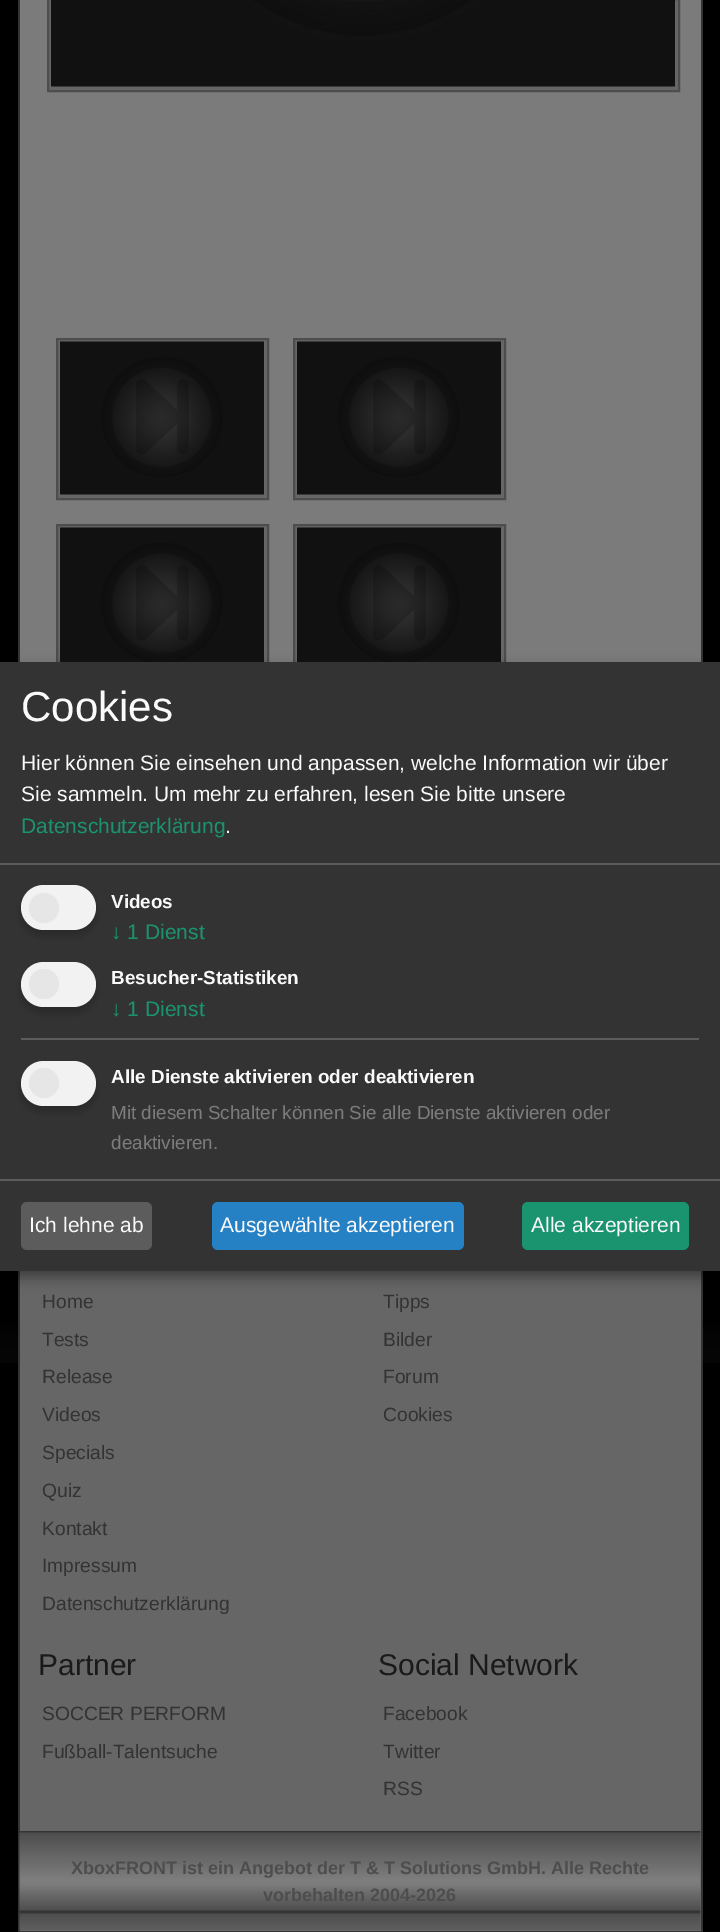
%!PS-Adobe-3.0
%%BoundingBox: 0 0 720 1932
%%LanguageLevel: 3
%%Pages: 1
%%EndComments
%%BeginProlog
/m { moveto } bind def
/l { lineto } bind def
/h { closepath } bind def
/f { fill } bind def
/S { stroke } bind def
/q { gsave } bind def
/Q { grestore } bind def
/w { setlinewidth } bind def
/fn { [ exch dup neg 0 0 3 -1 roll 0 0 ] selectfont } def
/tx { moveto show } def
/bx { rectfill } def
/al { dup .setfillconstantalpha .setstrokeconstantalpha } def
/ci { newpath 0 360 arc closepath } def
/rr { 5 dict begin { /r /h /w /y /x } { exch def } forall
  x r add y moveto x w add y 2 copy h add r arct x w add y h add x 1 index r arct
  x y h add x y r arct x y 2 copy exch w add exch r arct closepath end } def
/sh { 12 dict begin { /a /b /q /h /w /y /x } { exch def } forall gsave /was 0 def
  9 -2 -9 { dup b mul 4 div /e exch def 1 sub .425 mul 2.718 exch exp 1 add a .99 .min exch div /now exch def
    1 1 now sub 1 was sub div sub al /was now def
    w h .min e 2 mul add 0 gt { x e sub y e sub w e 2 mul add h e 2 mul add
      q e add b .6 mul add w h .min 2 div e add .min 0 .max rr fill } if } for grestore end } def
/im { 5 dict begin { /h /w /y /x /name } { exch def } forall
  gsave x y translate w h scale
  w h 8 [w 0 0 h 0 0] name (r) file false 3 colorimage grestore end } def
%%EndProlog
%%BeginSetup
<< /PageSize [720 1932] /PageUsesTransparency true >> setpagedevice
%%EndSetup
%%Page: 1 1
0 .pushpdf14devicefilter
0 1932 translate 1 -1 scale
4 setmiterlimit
0 setgray
0 0 720 1932 bx
(image0.raw) 0 1323 720 40 im
0.2 setgray
701 0 2 1932 bx
18 1931 684 1 bx
18 0 2 1932 bx
0.482 setgray
20 0 681 662 bx
0.4 setgray
58 526 209 136 bx
0.302 setgray
2 w
57 525 211 160 rectstroke
0.4 setgray
295 526 209 136 bx
0.302 setgray
294 525 211 160 rectstroke
(image3.raw) 60 527 204 135 im
(image3.raw) 297 527 204 135 im
0.4 setgray
20 1271 681 660 bx
0 setgray
8 669 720 609 0 7.5 0.19 sh
0 668 720 609 0 4.5 0.2 sh
0.2 setgray
0 662 720 609 bx
0.361 setgray
0 863 720 2 bx
/LiberationSans-Regular 42 fn
0.98 setgray
(Cookies) 21 721 tx
/LiberationSans-Regular 21 fn
(Hier können Sie einsehen und anpassen, welche Information wir über) 21 770 tx
(Sie sammeln. Um mehr zu erfahren, lesen Sie bitte unsere) 21 801 tx
0.102 0.576 0.435 setrgbcolor
(Datenschutzerklärung) 21 833 tx
0.98 setgray
(.) 225 833 tx
0 setgray
21 891 75 45 22.5 4.5 0.2 sh
0.949 setgray
21 885 75 45 22.5 rr f
0.902 setgray
44 908 15 ci f
/LiberationSans-Bold 18.9 fn
0.98 setgray
(Videos) 111 908 tx
/LiberationSans-Regular 21 fn
0.102 0.576 0.435 setrgbcolor
(↓ 1 Dienst) 111 939 tx
0 setgray
21 968 75 45 22.5 4.5 0.2 sh
0.949 setgray
21 962 75 45 22.5 rr f
0.902 setgray
44 984 15 ci f
/LiberationSans-Bold 18.9 fn
0.98 setgray
(Besucher-Statistiken) 111 984 tx
/LiberationSans-Regular 21 fn
0.102 0.576 0.435 setrgbcolor
(↓ 1 Dienst) 111 1016 tx
0.361 setgray
21 1038 678 2 bx
0 setgray
21 1067 75 45 22.5 4.5 0.2 sh
0.949 setgray
21 1061 75 45 22.5 rr f
0.902 setgray
44 1083 15 ci f
/LiberationSans-Bold 18.9 fn
0.98 setgray
(Alle Dienste aktivieren oder deaktivieren) 111 1083 tx
/LiberationSans-Regular 18.9 fn
0.486 setgray
(Mit diesem Schalter können Sie alle Dienste aktivieren oder) 111 1119 tx
(deaktivieren.) 111 1149 tx
0.361 setgray
0 1179 720 2 bx
21 1202 131 48 6 rr f
/LiberationSans-Regular 21 fn
0.98 setgray
(Ich lehne ab) 29 1232 tx
0.145 0.506 0.769 setrgbcolor
212 1202 252 48 6 rr f
0.98 setgray
(Ausgewählte akzeptieren) 220 1232 tx
0.102 0.576 0.435 setrgbcolor
522 1202 167 48 6 rr f
0.98 setgray
(Alle akzeptieren) 531 1232 tx
0.4 setgray
48 -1 m 679 -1 l 679 91 l 48 91 l h q f Q
0.302 setgray
S
(image1.raw) 51 0 624 87 im
0.4 setgray
57 339 m 268 339 l 268 499 l 57 499 l h q f Q
0.302 setgray
S
0.4 setgray
294 339 m 505 339 l 505 499 l 294 499 l h q f Q
0.302 setgray
S
(image2.raw) 60 341 204 154 im
(image2.raw) 297 341 204 154 im
/LiberationSans-Regular 19.25 fn
0.2 setgray
(Home) 42 1308 tx
(Tests) 42 1346 tx
(Release) 42 1383 tx
(Videos) 42 1421 tx
(Tipps) 383 1308 tx
(Bilder) 383 1346 tx
(Forum) 383 1383 tx
(Cookies) 383 1421 tx
(Specials) 42 1459 tx
(Quiz) 42 1497 tx
(Kontakt) 42 1535 tx
(Impressum) 42 1572 tx
(Datenschutzerklärung) 42 1610 tx
/LiberationSans-Regular 30 fn
0.102 setgray
(Partner) 38 1675 tx
/LiberationSans-Regular 19.25 fn
0.2 setgray
(SOCCER PERFORM) 42 1720 tx
(Fußball-Talentsuche) 42 1758 tx
/LiberationSans-Regular 30 fn
0.102 setgray
(Social Network) 378 1675 tx
/LiberationSans-Regular 19.25 fn
0.2 setgray
(Facebook) 383 1720 tx
(Twitter) 383 1758 tx
(RSS) 383 1795 tx
(image4.raw) 19 1831 682 99 im
/LiberationSans-Bold 18 fn
0.302 setgray
(XboxFRONT ist ein Angebot der T & T Solutions GmbH. Alle Rechte) 71 1874 tx
(vorbehalten 2004-2026) 263 1901 tx
.poppdf14devicefilter showpage
%%EOF
